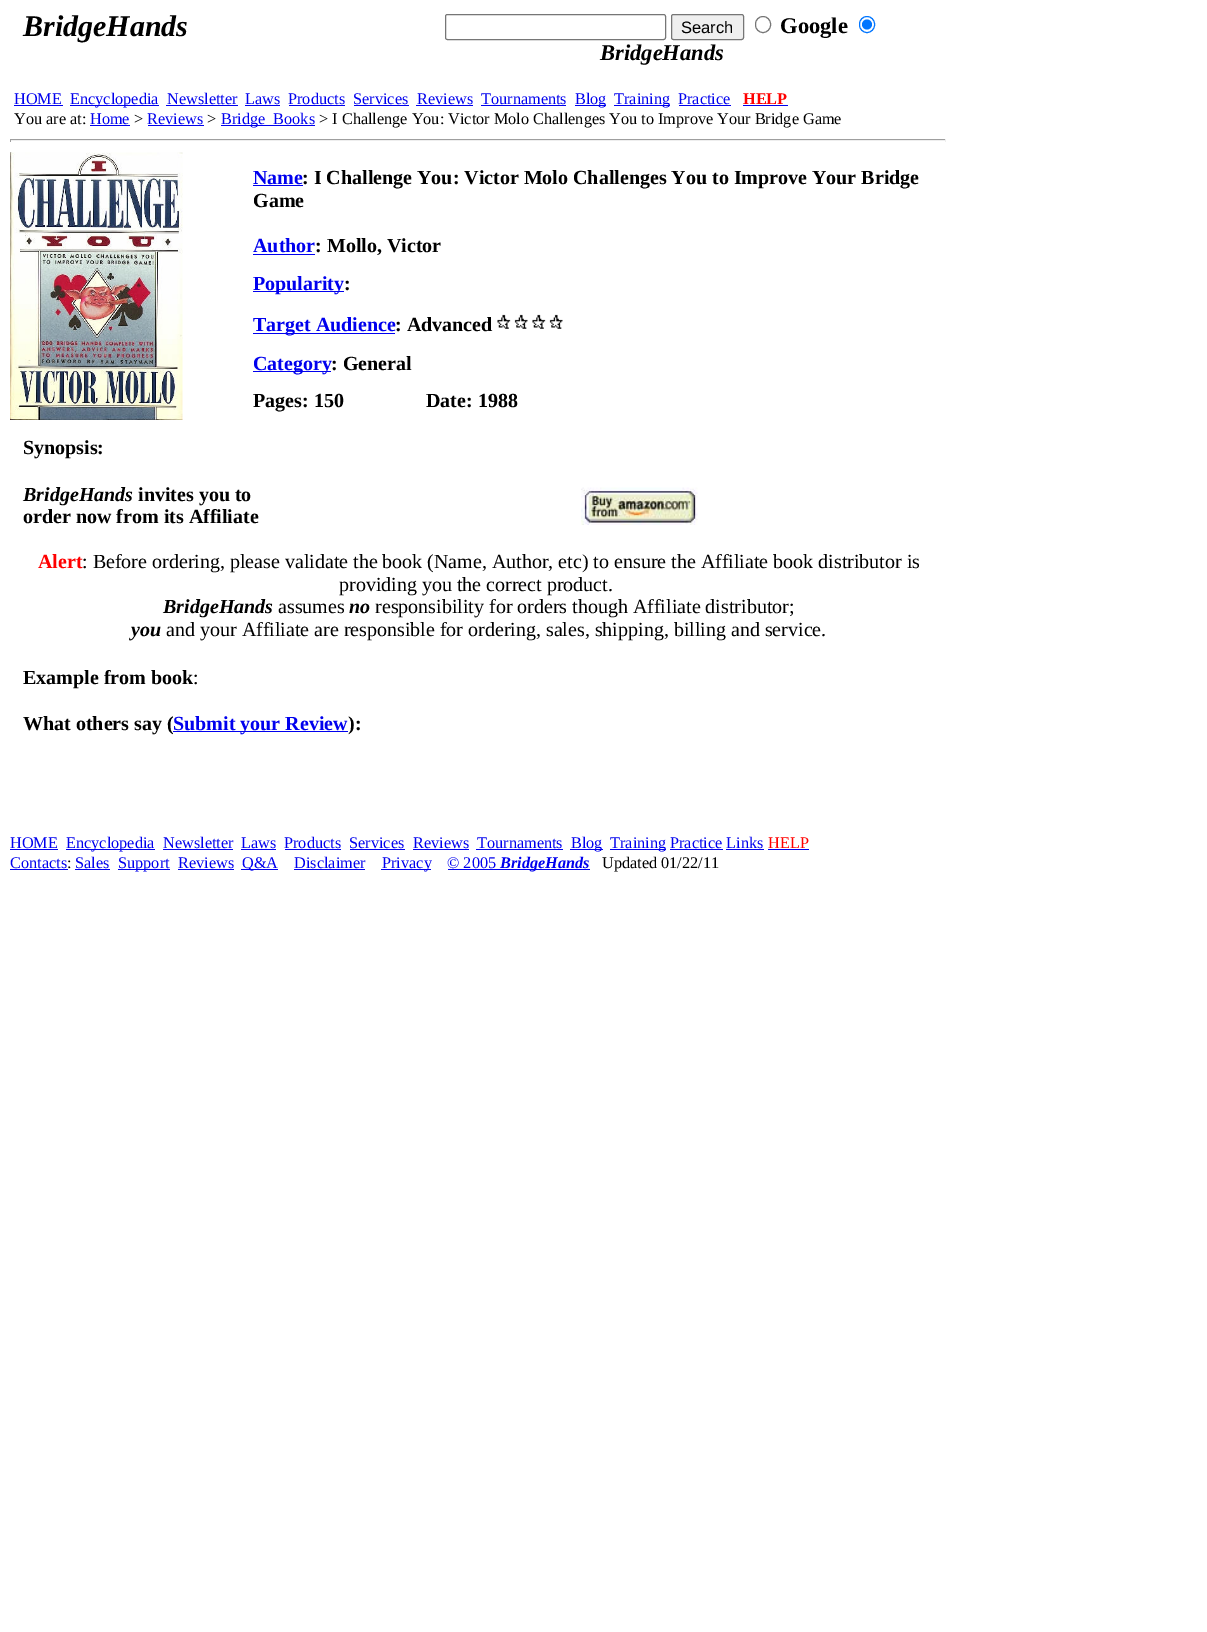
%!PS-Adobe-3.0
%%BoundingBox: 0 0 1207 1632
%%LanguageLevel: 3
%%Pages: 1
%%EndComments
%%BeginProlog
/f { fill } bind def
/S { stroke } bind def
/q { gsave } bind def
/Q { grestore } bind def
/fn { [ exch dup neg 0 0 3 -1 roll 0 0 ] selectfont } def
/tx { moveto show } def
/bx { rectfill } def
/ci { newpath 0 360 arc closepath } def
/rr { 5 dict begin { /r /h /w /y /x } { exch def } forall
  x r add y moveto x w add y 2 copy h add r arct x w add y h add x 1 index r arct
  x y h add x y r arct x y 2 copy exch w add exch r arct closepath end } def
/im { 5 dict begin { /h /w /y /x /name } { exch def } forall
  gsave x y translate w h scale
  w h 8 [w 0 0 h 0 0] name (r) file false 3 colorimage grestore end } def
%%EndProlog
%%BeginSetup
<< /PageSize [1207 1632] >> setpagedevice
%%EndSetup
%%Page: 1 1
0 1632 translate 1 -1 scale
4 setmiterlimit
1 setgray
0 0 1207 1632 bx
/LiberationSerif-BoldItalic 30 fn
0 setgray
(BridgeHands) 23 36 tx
0.463 setgray
445.5 14.5 220 25 2 rr S
0.937 setgray
671.5 14.5 72 25 2 rr q f Q
0.463 setgray
S
/LiberationSans-Regular 16.5 fn
0 setgray
(Search) 681 33 tx
0.463 setgray
755.5 16.5 15 16 7.5 rr S
/LiberationSerif-Bold 22.5 fn
0 setgray
(Google) 780 33 tx
0 0.459 1 setrgbcolor
859.5 16.5 15 16 7.5 rr S
867 24.5 5 ci f
/LiberationSerif-BoldItalic 22.5 fn
0 setgray
(BridgeHands) 600 60 tx
/LiberationSerif-Regular 16.25 fn
0 0 0.933 setrgbcolor
(HOME) 14 104 tx
14 105 49 1 bx
70 105 89 1 bx
(Encyclopedia) 70 104 tx
(Newsletter) 167 104 tx
166 105 72 1 bx
(Laws) 245 104 tx
245 105 35 1 bx
(Products) 288 104 tx
289 105 56 1 bx
(Services) 353 104 tx
354 105 55 1 bx
(Reviews) 417 104 tx
416 105 57 1 bx
(Tournaments) 481 104 tx
481 105 85 1 bx
575 105 31 1 bx
(Blog) 575 104 tx
614 105 56 1 bx
(Training) 614 104 tx
(Practice) 678 104 tx
679 105 52 1 bx
/LiberationSerif-Bold 16.25 fn
1 0 0 setrgbcolor
(HELP) 743 104 tx
0 0 0.933 setrgbcolor
743 105 45 1 bx
/LiberationSerif-Regular 16.25 fn
0 setgray
(You are at:) 14 124 tx
0 0 0.933 setrgbcolor
(Home) 90 124 tx
90 125 40 1 bx
0 setgray
(>) 134 124 tx
0 0 0.933 setrgbcolor
(Reviews) 147 124 tx
148 125 56 1 bx
0 setgray
(>) 207 124 tx
0 0 0.933 setrgbcolor
221 125 94 1 bx
(Bridge_Books) 221 124 tx
0 setgray
(> I Challenge You: Victor Molo Challenges You to Improve Your Bridge Game) 319 124 tx
0.624 setgray
10 139 936 1 bx
0.933 setgray
945 139 1 3 bx
10 140 936 1 bx
0.624 setgray
10 139 1 3 bx
(image0.raw) 10 152 173 268 im
/LiberationSerif-Bold 20 fn
0 0 0.933 setrgbcolor
(Name) 253 184 tx
0 setgray
(: I Challenge You: Victor Molo Challenges You to Improve Your Bridge) 302 184 tx
0 0 0.933 setrgbcolor
253 185 50 1 bx
0 setgray
(Game) 253 207 tx
0 0 0.933 setrgbcolor
(Author) 253 252 tx
0 setgray
(: Mollo, Victor) 315 252 tx
0 0 0.933 setrgbcolor
253 254 62 1 bx
253 291 91 1 bx
(Popularity) 253 290 tx
0 setgray
(:) 344 290 tx
0 0 0.933 setrgbcolor
253 333 142 1 bx
(Target Audience) 253 331 tx
0 setgray
(: Advanced) 395 331 tx
(image1.raw) 492 314 71 17 im
0 0 0.933 setrgbcolor
253 371 78 1 bx
(Category) 253 370 tx
0 setgray
(: General) 331 370 tx
(Pages: 150) 253 407 tx
(Date: 1988) 426 407 tx
(Synopsis:) 23 454 tx
/LiberationSerif-BoldItalic 20 fn
(BridgeHands) 23 501 tx
/LiberationSerif-Bold 20 fn
(invites you to) 138 501 tx
(order now from its Affiliate) 23 523 tx
(image2.raw) 581 487 117 38 im
1 0 0 setrgbcolor
(Alert) 38 568 tx
/LiberationSerif-Regular 20 fn
0 setgray
(: Before ordering, please validate the book \(Name, Author, etc\) to ensure the Affiliate book distributor is) 82 568 tx
(providing you the correct product.) 339 591 tx
/LiberationSerif-BoldItalic 20 fn
(BridgeHands) 163 613 tx
/LiberationSerif-Regular 20 fn
(assumes) 278 613 tx
/LiberationSerif-BoldItalic 20 fn
(no) 349 613 tx
/LiberationSerif-Regular 20 fn
(responsibility for orders though Affiliate distributor;) 375 613 tx
/LiberationSerif-BoldItalic 20 fn
(you) 131 636 tx
/LiberationSerif-Regular 20 fn
(and your Affiliate are responsible for ordering, sales, shipping, billing and service.) 166 636 tx
/LiberationSerif-Bold 20 fn
(Example from book) 23 684 tx
/LiberationSerif-Regular 20 fn
(:) 193 684 tx
/LiberationSerif-Bold 20 fn
(What others say \() 23 730 tx
0 0 0.933 setrgbcolor
173 731 175 1 bx
(Submit your Review) 173 730 tx
0 setgray
(\):) 348 730 tx
/LiberationSerif-Regular 16.25 fn
0 0 0.933 setrgbcolor
(HOME) 10 848 tx
10 849 48 1 bx
66 849 89 1 bx
(Encyclopedia) 66 848 tx
(Newsletter) 163 848 tx
163 849 70 1 bx
(Laws) 241 848 tx
241 849 35 1 bx
(Products) 284 848 tx
285 849 56 1 bx
(Services) 349 848 tx
350 849 55 1 bx
(Reviews) 413 848 tx
413 849 56 1 bx
(Tournaments) 477 848 tx
476 849 87 1 bx
570 849 33 1 bx
(Blog) 571 848 tx
610 849 56 1 bx
(Training Practice Links) 610 848 tx
670 849 53 1 bx
726 849 38 1 bx
1 0 0 setrgbcolor
(HELP) 768 848 tx
0 0 0.933 setrgbcolor
768 849 41 1 bx
(Contacts) 10 868 tx
0 setgray
(:) 67 868 tx
0 0 0.933 setrgbcolor
10 869 58 1 bx
75 869 35 1 bx
(Sales) 75 868 tx
118 869 52 1 bx
(Support) 118 868 tx
(Reviews) 178 868 tx
178 869 56 1 bx
241 869 37 1 bx
(Q&A) 242 868 tx
(Disclaimer) 294 868 tx
294 869 71 1 bx
381 869 50 1 bx
(Privacy) 382 868 tx
(© 2005) 447 868 tx
448 869 142 1 bx
/LiberationSerif-BoldItalic 16.25 fn
(BridgeHands) 500 868 tx
/LiberationSerif-Regular 16.25 fn
0 setgray
(Updated 01/22/11) 602 868 tx
showpage
%%EOF
